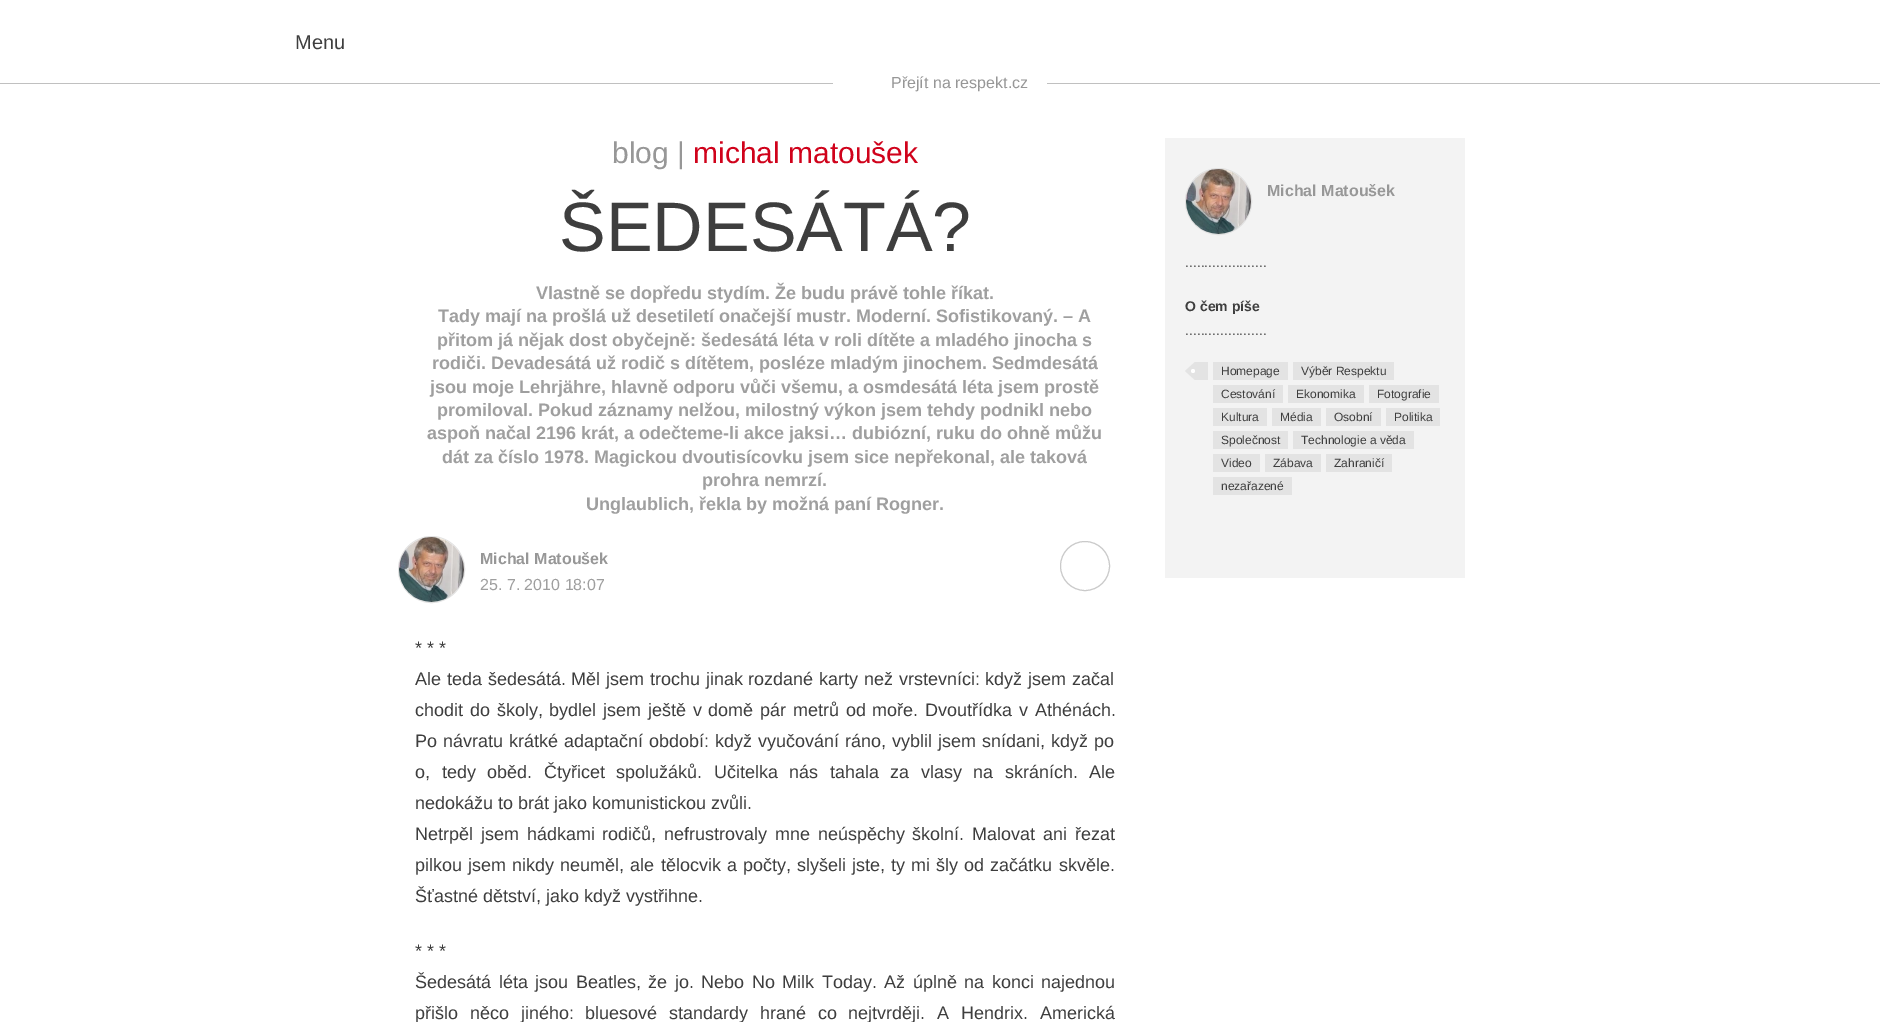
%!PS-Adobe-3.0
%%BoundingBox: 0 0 1880 1022
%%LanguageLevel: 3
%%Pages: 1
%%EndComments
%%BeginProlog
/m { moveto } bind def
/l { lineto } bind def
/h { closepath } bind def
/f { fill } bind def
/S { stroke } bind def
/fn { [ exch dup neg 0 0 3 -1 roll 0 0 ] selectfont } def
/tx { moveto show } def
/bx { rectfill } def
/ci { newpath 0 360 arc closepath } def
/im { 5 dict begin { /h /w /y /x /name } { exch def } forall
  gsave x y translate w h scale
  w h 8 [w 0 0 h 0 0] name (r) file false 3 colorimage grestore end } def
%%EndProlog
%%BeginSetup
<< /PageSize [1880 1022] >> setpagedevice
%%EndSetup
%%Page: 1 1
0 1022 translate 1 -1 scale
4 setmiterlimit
1 setgray
0 0 1880 1022 bx
0.753 setgray
0 83 1880 1 bx
/LiberationSans-Regular 20 fn
0.243 setgray
(Menu) 295 49 tx
1 setgray
833 83 214 1 bx
/LiberationSans-Regular 16 fn
0.592 setgray
(Přejít na respekt.cz) 891 88 tx
/LiberationSans-Regular 30 fn
(blog |) 612 163 tx
0.816 0.008 0.106 setrgbcolor
(michal matoušek) 693 163 tx
/LiberationSans-Regular 70 fn
0.243 setgray
(ŠEDESÁTÁ?) 559 251 tx
/LiberationSans-Bold 18 fn
0.624 setgray
(Vlastně se dopředu stydím. Že budu právě tohle říkat.) 536 299 tx
(Tady mají na prošlá už desetiletí onačejší mustr. Moderní. Sofistikovaný. – A) 438 322 tx
(přitom já nějak dost obyčejně: šedesátá léta v roli dítěte a mladého jinocha s) 437 346 tx
(rodiči. Devadesátá už rodič s dítětem, posléze mladým jinochem. Sedmdesátá) 432 369 tx
(jsou moje Lehrjähre, hlavně odporu vůči všemu, a osmdesátá léta jsem prostě) 430 393 tx
(promiloval. Pokud záznamy nelžou, milostný výkon jsem tehdy podnikl nebo) 437 416 tx
(aspoň načal 2196 krát, a odečteme-li akce jaksi… dubiózní, ruku do ohně můžu) 427 439 tx
(dát za číslo 1978. Magickou dvoutisícovku jsem sice nepřekonal, ale taková) 442 463 tx
(prohra nemrzí.) 702 486 tx
(Unglaublich, řekla by možná paní Rogner.) 586 510 tx
0.878 setgray
431.5 569.5 33 ci S
(image0.raw) 399 537 65 65 im
/LiberationSans-Bold 16 fn
0.592 setgray
(Michal Matoušek) 480 564 tx
/LiberationSans-Regular 16 fn
0.624 setgray
(25. 7. 2010 18:07) 480 590 tx
0.792 setgray
1085 566 24.5 ci S
/LiberationSans-Regular 18 fn
0.243 setgray
(* * *) 415 654 tx
415 685 m 0.75 0 32 (Ale teda šedesátá. Měl jsem trochu jinak rozdané karty než vrstevníci: když jsem začal) widthshow
415 716 m 1.75 0 32 (chodit do školy, bydlel jsem ještě v domě pár metrů od moře. Dvoutřídka v Athénách.) widthshow
415 747 m 1 0 32 (Po návratu krátké adaptační období: když vyučování ráno, vyblil jsem snídani, když po) widthshow
415 778 m 6.5 0 32 (o, tedy oběd. Čtyřicet spolužáků. Učitelka nás tahala za vlasy na skráních. Ale) widthshow
(nedokážu to brát jako komunistickou zvůli.) 415 809 tx
415 840 m 2.75 0 32 (Netrpěl jsem hádkami rodičů, nefrustrovaly mne neúspěchy školní. Malovat ani řezat) widthshow
415 871 m 1.1 0 32 (pilkou jsem nikdy neuměl, ale tělocvik a počty, slyšeli jste, ty mi šly od začátku skvěle.) widthshow
(Šťastné dětství, jako když vystřihne.) 415 902 tx
(* * *) 415 957 tx
415 988 m 2.5 0 32 (Šedesátá léta jsou Beatles, že jo. Nebo No Milk Today. Až úplně na konci najednou) widthshow
415 1019 m 6.75 0 32 (přišlo něco jiného: bluesové standardy hrané co nejtvrději. A Hendrix. Americká) widthshow
0.953 setgray
1165 138 300 440 bx
0.878 setgray
1218.5 201.5 33 ci S
(image1.raw) 1186 169 65 65 im
/LiberationSans-Bold 16 fn
0.592 setgray
(Michal Matoušek) 1267 196 tx
/LiberationSans-Regular 14 fn
0.243 setgray
(.....................) 1185 267 tx
/LiberationSans-Bold 14 fn
(O čem píše) 1185 311 tx
/LiberationSans-Regular 14 fn
(.....................) 1185 335 tx
0.89 setgray
1195 362 13 18 bx
1195 362 m 1195 380 l 1185 371 l h f
1 setgray
1193 371 2 ci f
0.89 setgray
1213 362 75 18 bx
/LiberationSans-Regular 12 fn
0.243 setgray
(Homepage) 1221 375 tx
0.89 setgray
1293 362 101 18 bx
0.243 setgray
(Výběr Respektu) 1301 375 tx
0.89 setgray
1213 385 70 18 bx
0.243 setgray
(Cestování) 1221 398 tx
0.89 setgray
1288 385 76 18 bx
0.243 setgray
(Ekonomika) 1296 398 tx
0.89 setgray
1369 385 70 18 bx
0.243 setgray
(Fotografie) 1377 398 tx
0.89 setgray
1213 408 54 18 bx
0.243 setgray
(Kultura) 1221 421 tx
0.89 setgray
1272 408 49 18 bx
0.243 setgray
(Média) 1280 421 tx
0.89 setgray
1326 408 55 18 bx
0.243 setgray
(Osobní) 1334 421 tx
0.89 setgray
1386 408 54 18 bx
0.243 setgray
(Politika) 1394 421 tx
0.89 setgray
1213 431 75 18 bx
0.243 setgray
(Společnost) 1221 444 tx
0.89 setgray
1293 431 121 18 bx
0.243 setgray
(Technologie a věda) 1301 444 tx
0.89 setgray
1213 454 47 18 bx
0.243 setgray
(Video) 1221 467 tx
0.89 setgray
1265 454 56 18 bx
0.243 setgray
(Zábava) 1273 467 tx
0.89 setgray
1326 454 66 18 bx
0.243 setgray
(Zahraničí) 1334 467 tx
0.89 setgray
1213 477 79 18 bx
0.243 setgray
(nezařazené) 1221 490 tx
showpage
%%EOF
